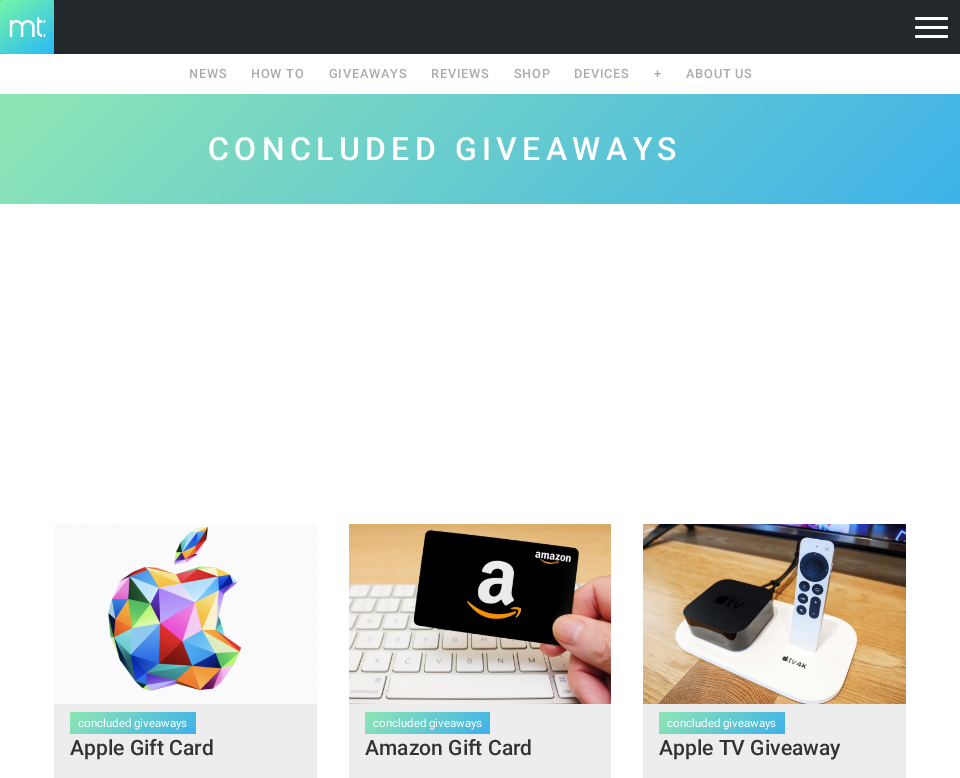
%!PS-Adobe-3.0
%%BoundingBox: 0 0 960 778
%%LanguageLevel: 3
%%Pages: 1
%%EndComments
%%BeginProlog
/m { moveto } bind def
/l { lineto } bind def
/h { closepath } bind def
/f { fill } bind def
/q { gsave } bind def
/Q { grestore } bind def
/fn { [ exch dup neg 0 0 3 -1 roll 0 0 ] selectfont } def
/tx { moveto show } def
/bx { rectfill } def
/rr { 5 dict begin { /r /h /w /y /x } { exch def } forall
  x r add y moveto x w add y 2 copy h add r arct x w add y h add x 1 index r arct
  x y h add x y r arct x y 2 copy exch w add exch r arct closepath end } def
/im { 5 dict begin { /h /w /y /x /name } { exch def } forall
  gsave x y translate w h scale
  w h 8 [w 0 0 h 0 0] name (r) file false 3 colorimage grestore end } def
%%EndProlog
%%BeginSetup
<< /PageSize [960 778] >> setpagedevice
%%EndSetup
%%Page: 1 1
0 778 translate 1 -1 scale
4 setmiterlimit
1 setgray
0 0 960 778 bx
0.137 0.157 0.176 setrgbcolor
0 0 960 54 bx
(image0.raw) 0 0 54 54 im
1 setgray
915 17 33 3 1.5 rr f
915 26 33 3 1.5 rr f
915 35 33 3 1.5 rr f
/Roboto-Medium 12.75 fn
0.671 setgray
189 78 m 0.75 0 (NEWS) ashow
251 78 m 0.75 0 (HOW TO) ashow
329 78 m 0.75 0 (GIVEAWAYS) ashow
431 78 m 0.75 0 (REVIEWS) ashow
514 78 m 0.75 0 (SHOP) ashow
574 78 m 0.75 0 (DEVICES) ashow
654 78 m 0.75 0 (+) ashow
686 78 m 0.75 0 (ABOUT US) ashow
q 0 94 m 960 94 l 960 204 l 0 204 l h clip newpath
<< /ShadingType 2 /ColorSpace /DeviceRGB /Coords [213 -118 748 416] /Extend [true true] /Function << /FunctionType 2 /Domain [0 1] /C0 [0.561 0.902 0.706] /C1 [0.243 0.698 0.918] /N 1 >> >> shfill Q
/Roboto-Medium 32 fn
1 setgray
208 160 m 5.4 0 (CONCLUDED GIVEAWAYS) ashow
0.929 setgray
54 524 263 254 bx
(image1.raw) 54 524 263 180 im
q 70 712 m 196 712 l 196 734 l 70 734 l h clip newpath
<< /ShadingType 2 /ColorSpace /DeviceRGB /Coords [96 686 170 760] /Extend [true true] /Function << /FunctionType 2 /Domain [0 1] /C0 [0.561 0.902 0.706] /C1 [0.243 0.698 0.918] /N 1 >> >> shfill Q
/Roboto-Regular 11.5 fn
1 setgray
(concluded giveaways) 78 727 tx
/Roboto-Medium 21.1 fn
0.2 setgray
(Apple Gift Card) 70 755 tx
0.929 setgray
349 524 262 254 bx
(image2.raw) 349 524 262 180 im
q 365 712 m 490 712 l 490 734 l 365 734 l h clip newpath
<< /ShadingType 2 /ColorSpace /DeviceRGB /Coords [391 686 464 760] /Extend [true true] /Function << /FunctionType 2 /Domain [0 1] /C0 [0.561 0.902 0.706] /C1 [0.243 0.698 0.918] /N 1 >> >> shfill Q
/Roboto-Regular 11.5 fn
1 setgray
(concluded giveaways) 373 727 tx
/Roboto-Medium 21.1 fn
0.2 setgray
(Amazon Gift Card) 365 755 tx
0.929 setgray
643 524 263 254 bx
(image3.raw) 643 524 263 180 im
q 659 712 m 785 712 l 785 734 l 659 734 l h clip newpath
<< /ShadingType 2 /ColorSpace /DeviceRGB /Coords [685 686 759 760] /Extend [true true] /Function << /FunctionType 2 /Domain [0 1] /C0 [0.561 0.902 0.706] /C1 [0.243 0.698 0.918] /N 1 >> >> shfill Q
/Roboto-Regular 11.5 fn
1 setgray
(concluded giveaways) 667 727 tx
/Roboto-Medium 21.1 fn
0.2 setgray
(Apple TV Giveaway) 659 755 tx
showpage
%%EOF
